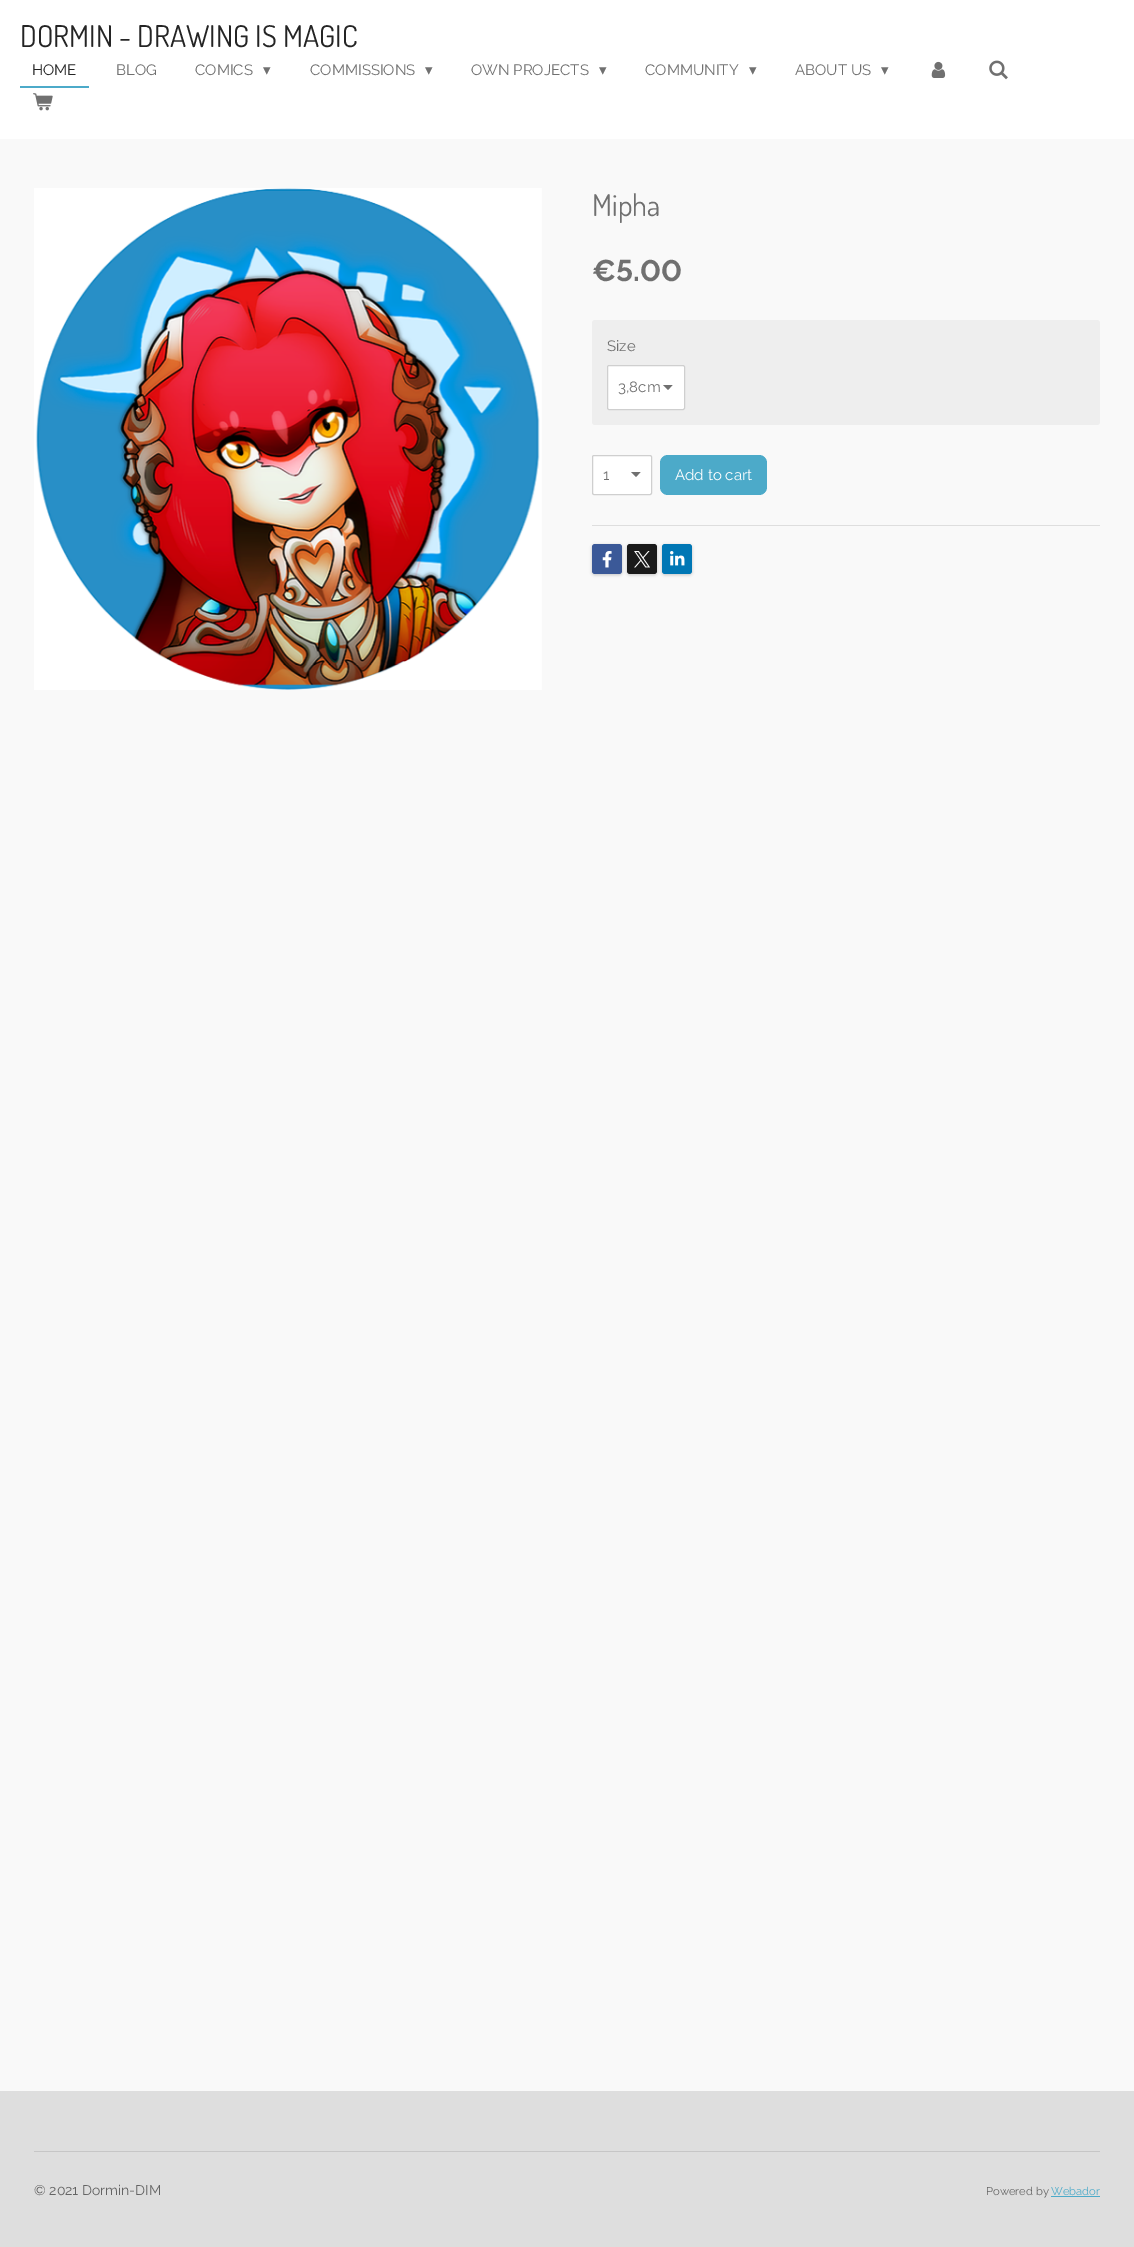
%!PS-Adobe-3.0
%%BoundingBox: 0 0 1134 2247
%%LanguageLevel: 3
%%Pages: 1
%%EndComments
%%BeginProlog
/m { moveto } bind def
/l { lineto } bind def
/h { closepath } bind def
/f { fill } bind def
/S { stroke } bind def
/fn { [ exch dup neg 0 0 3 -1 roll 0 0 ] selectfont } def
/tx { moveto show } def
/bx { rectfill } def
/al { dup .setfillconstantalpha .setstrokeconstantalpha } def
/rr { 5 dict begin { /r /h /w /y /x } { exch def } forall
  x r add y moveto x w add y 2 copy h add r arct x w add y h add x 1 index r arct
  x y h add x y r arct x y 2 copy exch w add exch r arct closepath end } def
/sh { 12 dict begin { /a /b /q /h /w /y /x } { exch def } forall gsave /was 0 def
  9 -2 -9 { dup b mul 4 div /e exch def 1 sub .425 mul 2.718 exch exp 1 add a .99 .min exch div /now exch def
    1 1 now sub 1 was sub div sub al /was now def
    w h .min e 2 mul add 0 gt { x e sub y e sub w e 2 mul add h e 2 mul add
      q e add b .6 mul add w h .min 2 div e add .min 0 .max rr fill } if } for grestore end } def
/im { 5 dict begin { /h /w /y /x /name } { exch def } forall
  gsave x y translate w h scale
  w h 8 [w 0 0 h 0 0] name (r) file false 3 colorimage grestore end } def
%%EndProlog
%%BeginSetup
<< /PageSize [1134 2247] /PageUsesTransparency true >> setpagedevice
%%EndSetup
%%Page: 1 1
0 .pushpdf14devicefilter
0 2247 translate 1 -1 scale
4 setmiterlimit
1 setgray
0 0 1134 2247 bx
/Dosis-Regular 30 fn
0.141 setgray
(DORMIN - DRAWING IS MAGIC) 20 47 tx
0.298 0.667 0.788 setrgbcolor
20 86 69 2 bx
/Raleway-Regular 15 fn
0.141 setgray
(HOME) 32 75 tx
0.439 setgray
(BLOG) 116 75 tx
(COMICS) 195 75 tx
/DejaVuSans-Regular 15 fn
(▾) 263 75 tx
/Raleway-Regular 15 fn
(COMMISSIONS) 310 75 tx
/DejaVuSans-Regular 15 fn
(▾) 425 75 tx
/Raleway-Regular 15 fn
(OWN PROJECTS) 471 75 tx
/DejaVuSans-Regular 15 fn
(▾) 599 75 tx
/Raleway-Regular 15 fn
(COMMUNITY) 645 75 tx
/DejaVuSans-Regular 15 fn
(▾) 749 75 tx
/Raleway-Regular 15 fn
(ABOUT US) 795 75 tx
/DejaVuSans-Regular 15 fn
(▾) 881 75 tx
(image0.raw) 931 61 15 17 im
(image1.raw) 989 60 19 20 im
(image2.raw) 33 93 20 18 im
0.976 setgray
0 139 1134 1952 bx
(image3.raw) 34 188 508 502 im
/Dosis-Regular 30 fn
0.439 setgray
(Mipha) 592 216 tx
/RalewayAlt-Bold 30 fn
(€5.00) 592 281 tx
0.933 setgray
592 320 508 105 3 rr f
/Raleway-Regular 15 fn
0.439 setgray
(Size) 607 351 tx
1 setgray
607 365 78 45 2 rr f
0.439 setgray
668 390 m 663 385 l 672.5 385 l h f
0.812 setgray
607.5 365.5 77 44 1.5 rr S
0.439 setgray
(3,8cm) 618 392 tx
1 setgray
592 455 60 40 2 rr f
0.439 setgray
636 477 m 631 472 l 640.5 472 l h f
0.812 setgray
592.5 455.5 59 39 1.5 rr S
0.439 setgray
(1) 603 480 tx
0.298 0.667 0.788 setrgbcolor
660 455 107 40 8 rr f
1 setgray
(Add to cart) 675 480 tx
0.871 setgray
592 525 508 1 bx
0 setgray
592 545 30 30 3 1.5 0.2 sh
0.231 0.349 0.596 setrgbcolor
592 544 30 30 3 rr f
(image4.raw) 602 551 10 17 im
0 setgray
627 545 30 30 3 1.5 0.2 sh
0.102 setgray
627 544 30 30 3 rr f
(image5.raw) 634 551 16 17 im
0 setgray
662 545 30 30 3 1.5 0.2 sh
0 0.467 0.71 setrgbcolor
662 544 30 30 3 rr f
(image6.raw) 670 551 15 15 im
0.871 setgray
0 2091 1134 156 bx
0.776 setgray
34 2151 1066 1 bx
/Raleway-Regular 14 fn
0.392 setgray
(© 2021 Dormin-DIM) 34 2195 tx
/Raleway-Regular 11.25 fn
(Powered by) 986 2195 tx
0.298 0.667 0.788 setrgbcolor
1051 2196 49 1 bx
(Webador) 1051 2195 tx
.poppdf14devicefilter showpage
%%EOF
